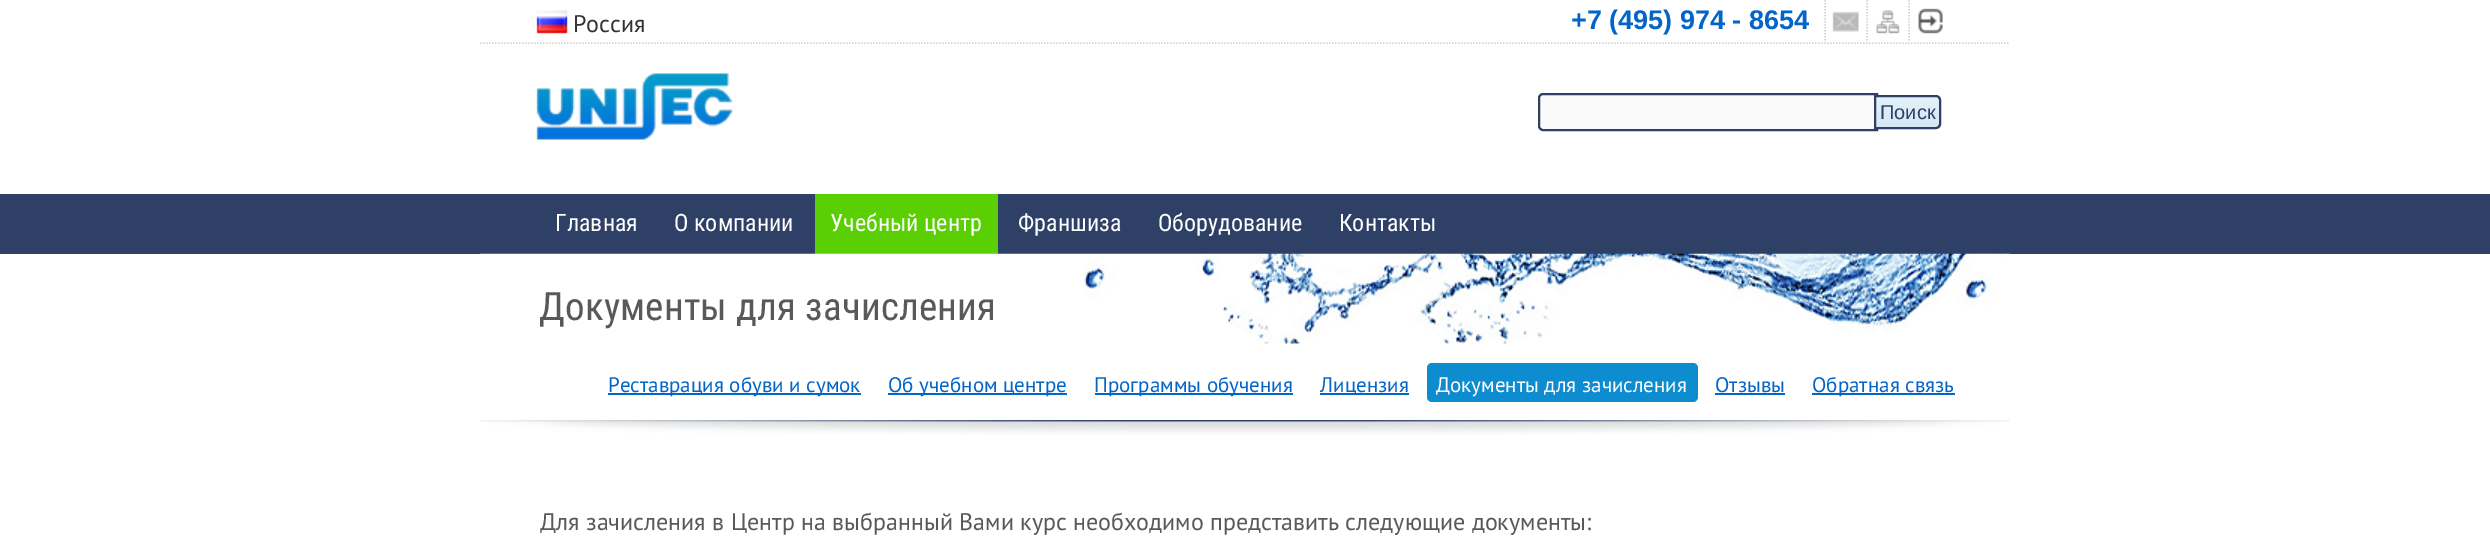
%!PS-Adobe-3.0
%%BoundingBox: 0 0 2490 555
%%LanguageLevel: 3
%%Pages: 1
%%EndComments
%%BeginProlog
/m { moveto } bind def
/l { lineto } bind def
/c { curveto } bind def
/h { closepath } bind def
/f { fill } bind def
/S { stroke } bind def
/q { gsave } bind def
/Q { grestore } bind def
/w { setlinewidth } bind def
/fn { [ exch dup neg 0 0 3 -1 roll 0 0 ] selectfont } def
/tx { moveto show } def
/bx { rectfill } def
/rr { 5 dict begin { /r /h /w /y /x } { exch def } forall
  x r add y moveto x w add y 2 copy h add r arct x w add y h add x 1 index r arct
  x y h add x y r arct x y 2 copy exch w add exch r arct closepath end } def
/im { 5 dict begin { /h /w /y /x /name } { exch def } forall
  gsave x y translate w h scale
  w h 8 [w 0 0 h 0 0] name (r) file false 3 colorimage grestore end } def
%%EndProlog
%%BeginSetup
<< /PageSize [2490 555] >> setpagedevice
%%EndSetup
%%Page: 1 1
0 555 translate 1 -1 scale
4 setmiterlimit
1 setgray
0 0 2490 555 bx
0.827 setgray
1.5 w
[1.5 1.5] 0 setdash
480 43 m 2010 43 l S
(image0.raw) 536 10 32 24 im
/PTSans-Regular 24 fn
0.2 setgray
(Россия) 573 32 tx
/LiberationSans-Bold 27 fn
0.016 0.396 0.788 setrgbcolor
(+7 \(495\) 974 - 8654) 1571 29 tx
0.827 setgray
1825 0 m 1825 42 l S
(image1.raw) 1832 11 27 21 im
1867 0 m 1867 42 l S
(image2.raw) 1876 10 24 24 im
1909 0 m 1909 42 l S
(image3.raw) 1918 8 25 26 im
(image4.raw) 536 73 197 67 im
0.98 setgray
1543 94 m 1877 94 l 1877 130 l 1543 130 l 1541 130 1539 128 1539 126 c 1539 98 l 1539 96 1541 94 1543 94 c h q f Q
0.184 0.251 0.4 setrgbcolor
2 w
[] 0 setdash
S
q
1874 95 m 1936 95 l 1939 95 1941 97 1941 100 c 1941 124 l 1941 127 1939 129 1936 129 c 1874 129 l h clip newpath
q 1876 96 m 1941 96 l 1941 128 l 1876 128 l h clip newpath
<< /ShadingType 2 /ColorSpace /DeviceRGB /Coords [1907 96 1907 128] /Extend [true true] /Function << /FunctionType 2 /Domain [0 1] /C0 [0.894 0.945 0.976] /C1 [0.835 0.906 0.953] /N 1 >> >> shfill Q
Q
1875 96 m 1936 96 l 1938 96 1940 98 1940 100 c 1940 124 l 1940 126 1938 128 1936 128 c 1875 128 l h S
/LiberationSans-Regular 20 fn
(Поиск) 1880 119 tx
0 194 2490 60 bx
/RobotoCondensed-Regular 24 fn
1 setgray
(Главная) 555 231 tx
(О компании) 674 231 tx
0.353 0.812 0.016 setrgbcolor
815 194 183 60 bx
1 setgray
(Учебный центр) 830 231 tx
(Франшиза) 1018 231 tx
(Оборудование) 1158 231 tx
(Контакты) 1339 231 tx
(image5.raw) 480 253 1530 91 im
/RobotoCondensed-Regular 39 fn
0.349 0.349 0.353 setrgbcolor
539 320 m 0.15 0 (Документы для зачисления) ashow
0.016 0.396 0.788 setrgbcolor
608 393 253 2 bx
/PTSans-Regular 21 fn
(Реставрация обуви и сумок) 608 392 tx
888 393 179 2 bx
(Об учебном центре) 888 392 tx
1095 393 198 2 bx
(Программы обучения) 1094 392 tx
1320 393 89 2 bx
(Лицензия) 1320 392 tx
0.051 0.549 0.812 setrgbcolor
1427 363 271 39 5 rr f
1 setgray
(Документы для зачисления) 1436 392 tx
0.016 0.396 0.788 setrgbcolor
(Отзывы) 1715 392 tx
1715 393 70 2 bx
1812 393 143 2 bx
(Обратная связь) 1812 392 tx
(image6.raw) 480 420 1530 15 im
/PTSans-Regular 24 fn
0.349 0.349 0.353 setrgbcolor
(Для зачисления в Центр на выбранный Вами курс необходимо представить следующие документы:) 540 530 tx
showpage
%%EOF
